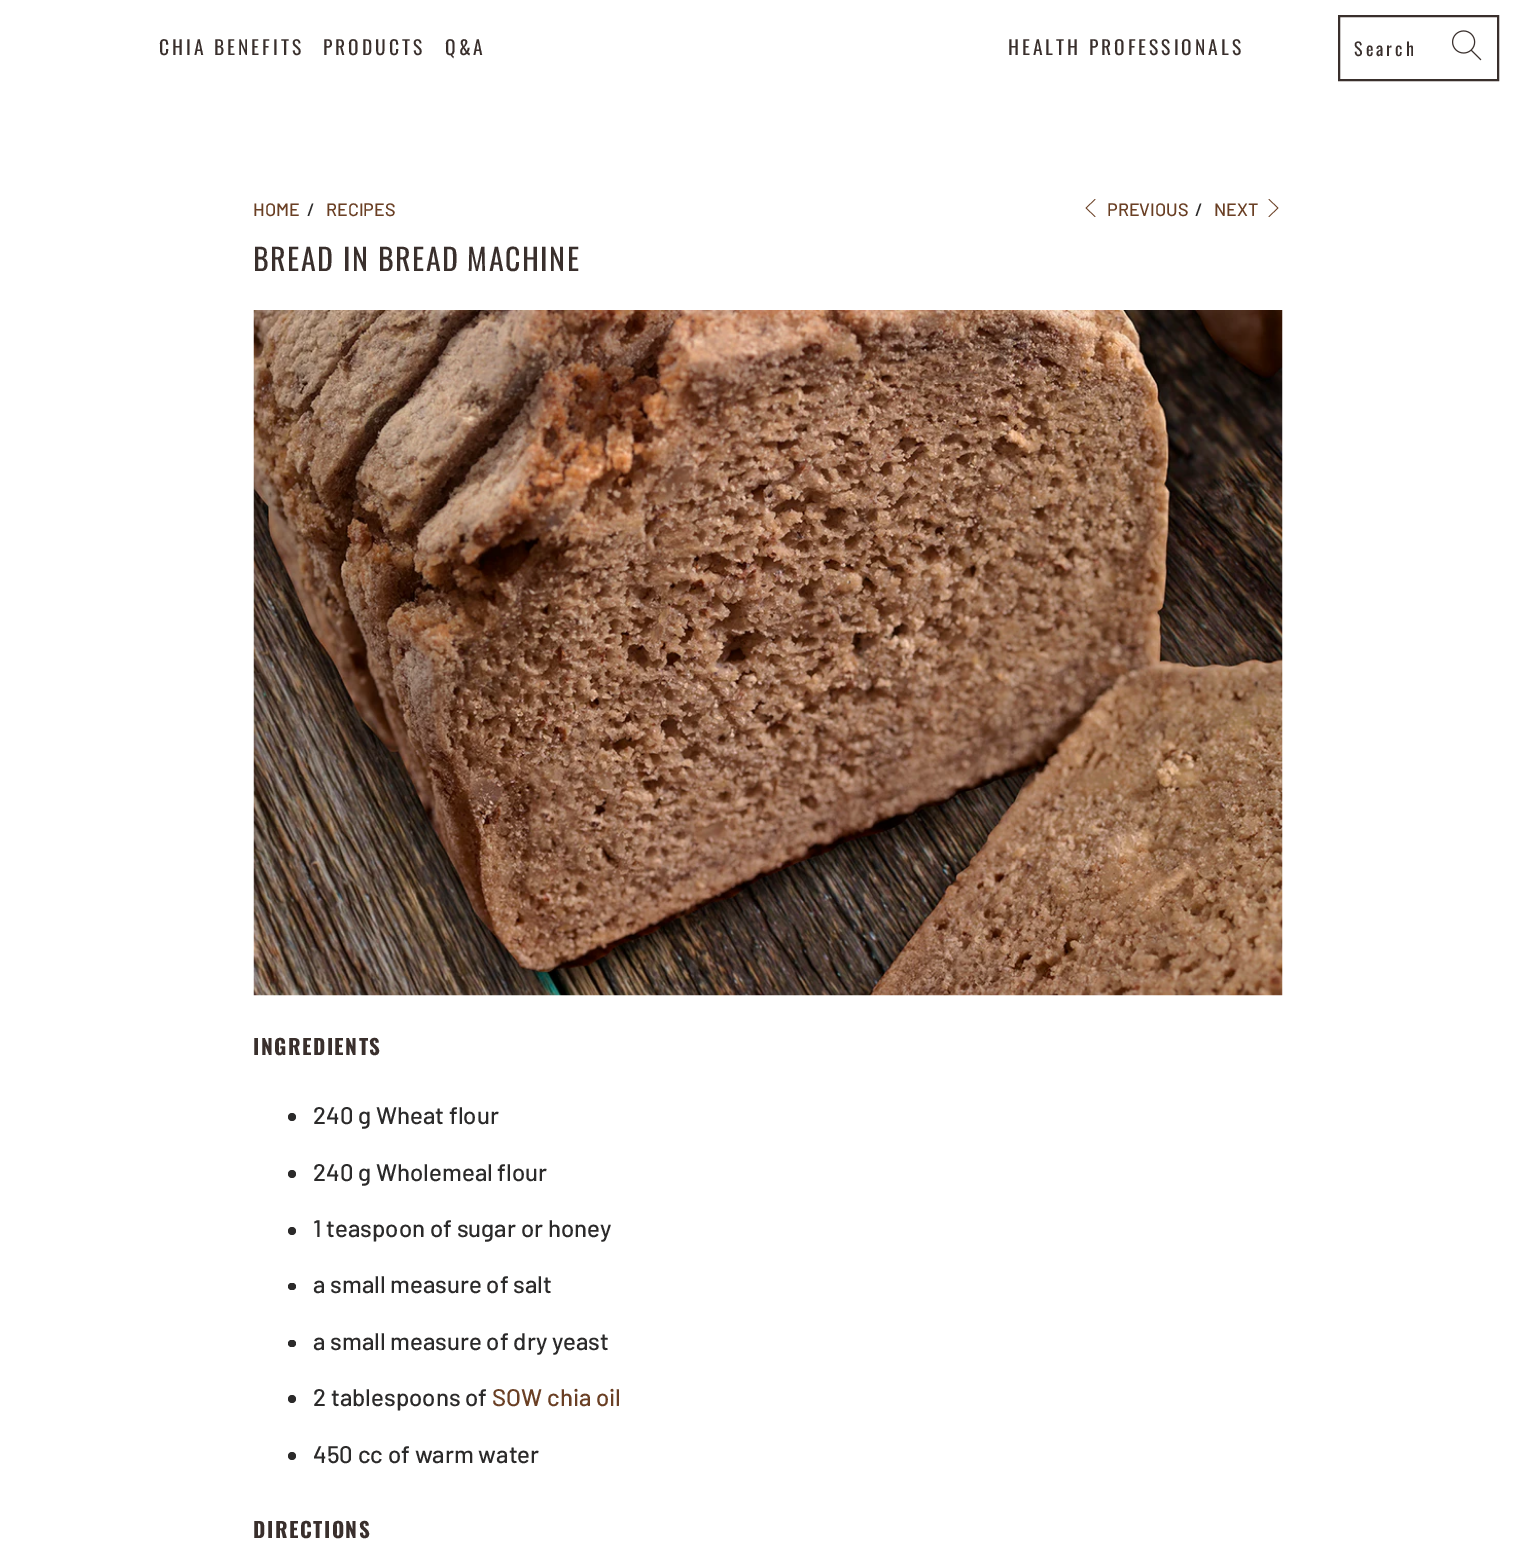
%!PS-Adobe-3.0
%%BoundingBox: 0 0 1536 1541
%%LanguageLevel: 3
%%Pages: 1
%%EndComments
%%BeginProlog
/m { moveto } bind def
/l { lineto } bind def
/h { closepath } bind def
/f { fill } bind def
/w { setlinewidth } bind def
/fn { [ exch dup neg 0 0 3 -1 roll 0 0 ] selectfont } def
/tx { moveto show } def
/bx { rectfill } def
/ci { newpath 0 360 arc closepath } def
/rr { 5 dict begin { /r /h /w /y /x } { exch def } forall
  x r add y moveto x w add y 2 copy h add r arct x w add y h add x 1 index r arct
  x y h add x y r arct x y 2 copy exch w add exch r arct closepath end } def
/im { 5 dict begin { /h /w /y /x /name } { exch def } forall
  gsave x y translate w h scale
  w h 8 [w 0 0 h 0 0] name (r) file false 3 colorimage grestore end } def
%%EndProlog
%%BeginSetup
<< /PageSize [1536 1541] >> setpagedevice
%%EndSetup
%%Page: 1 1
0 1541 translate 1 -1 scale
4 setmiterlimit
1 setgray
0 0 1536 1541 bx
/Oswald-Regular 19.5 fn
0.224 0.184 0.173 setrgbcolor
159 55 m 3 0 (CHIA BENEFITS) ashow
323 55 m 3 0 (PRODUCTS) ashow
445 55 m 3 0 (Q&A) ashow
1008 55 m 3 0 (HEALTH PROFESSIONALS) ashow
2 w
1339 16 159 64 rectstroke
/Oswald-Regular 18 fn
1354 56 m 3 0 (Search) ashow
(image0.raw) 1452 30 30 31 im
/Barlow-Medium 18 fn
0.416 0.247 0.141 setrgbcolor
(HOME) 253 216 tx
0.169 0.165 0.165 setrgbcolor
(/) 307 216 tx
0.416 0.247 0.141 setrgbcolor
(RECIPES) 326 216 tx
1095 217 m 1085.5 208 l 1095 199 l 1095.5 199.5 l 1086.5 208 l 1095.5 216.5 l h f
(PREVIOUS) 1107 216 tx
0.169 0.165 0.165 setrgbcolor
(/) 1195 216 tx
0.416 0.247 0.141 setrgbcolor
(NEXT) 1214 216 tx
1269 217 m 1268.5 216.5 l 1277.5 208 l 1268.5 199.5 l 1269 199 l 1278.5 208 l h f
/Oswald-Regular 30 fn
0.224 0.184 0.173 setrgbcolor
253 271 m 1.5 0 (BREAD IN BREAD MACHINE) ashow
(image1.raw) 253 310 1030 686 im
/Oswald-Bold 21 fn
253 1055 m 1.5 0 (INGREDIENTS) ashow
0.169 0.165 0.165 setrgbcolor
292 1117 4 ci f
/Barlow-Medium 24 fn
(240 g Wheat flour) 313 1124 tx
292 1174 4 ci f
(240 g Wholemeal flour) 313 1181 tx
292 1231 4 ci f
(1 teaspoon of sugar or honey) 313 1237 tx
288 1283 8 7 3.5 rr f
(a small measure of salt) 313 1293 tx
288 1340 8 7 3.5 rr f
(a small measure of dry yeast) 313 1350 tx
292 1399 4 ci f
(2 tablespoons of) 313 1406 tx
0.416 0.247 0.141 setrgbcolor
(SOW chia oil) 492 1406 tx
0.169 0.165 0.165 setrgbcolor
292 1456 4 ci f
(450 cc of warm water) 313 1463 tx
/Oswald-Bold 21 fn
0.224 0.184 0.173 setrgbcolor
253 1538 m 1.5 0 (DIRECTIONS) ashow
showpage
%%EOF
